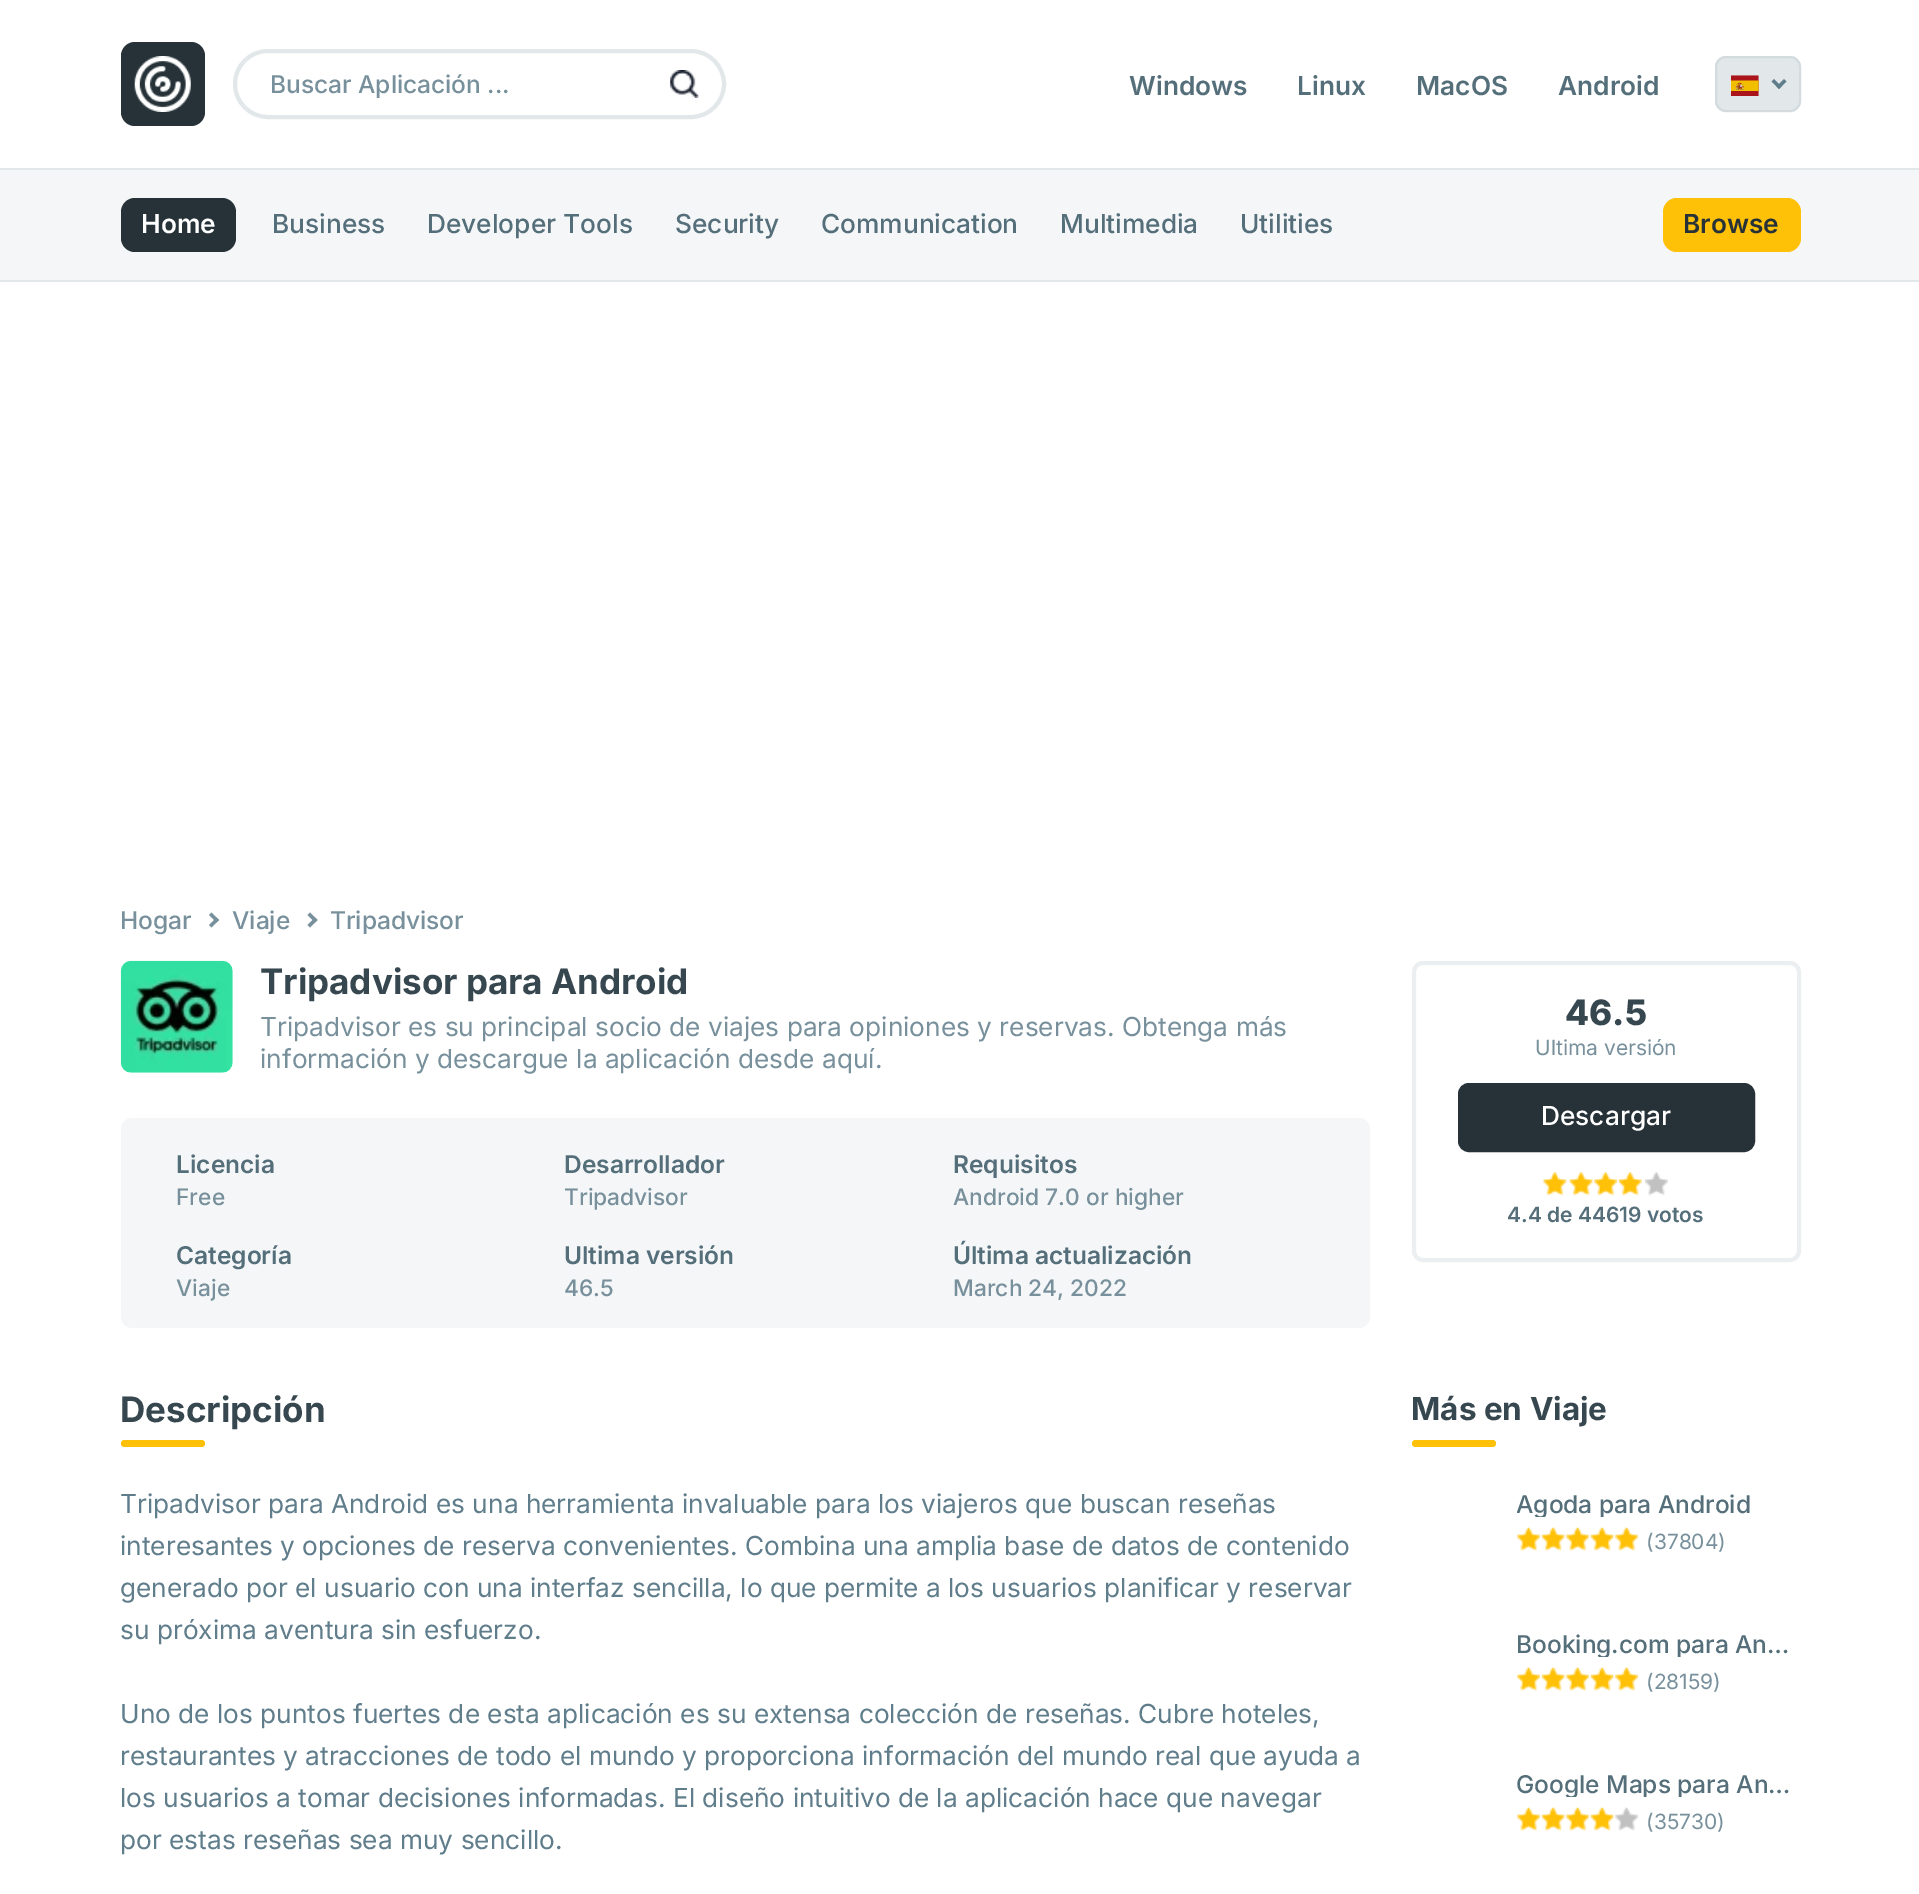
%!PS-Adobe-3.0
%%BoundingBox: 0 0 1919 1894
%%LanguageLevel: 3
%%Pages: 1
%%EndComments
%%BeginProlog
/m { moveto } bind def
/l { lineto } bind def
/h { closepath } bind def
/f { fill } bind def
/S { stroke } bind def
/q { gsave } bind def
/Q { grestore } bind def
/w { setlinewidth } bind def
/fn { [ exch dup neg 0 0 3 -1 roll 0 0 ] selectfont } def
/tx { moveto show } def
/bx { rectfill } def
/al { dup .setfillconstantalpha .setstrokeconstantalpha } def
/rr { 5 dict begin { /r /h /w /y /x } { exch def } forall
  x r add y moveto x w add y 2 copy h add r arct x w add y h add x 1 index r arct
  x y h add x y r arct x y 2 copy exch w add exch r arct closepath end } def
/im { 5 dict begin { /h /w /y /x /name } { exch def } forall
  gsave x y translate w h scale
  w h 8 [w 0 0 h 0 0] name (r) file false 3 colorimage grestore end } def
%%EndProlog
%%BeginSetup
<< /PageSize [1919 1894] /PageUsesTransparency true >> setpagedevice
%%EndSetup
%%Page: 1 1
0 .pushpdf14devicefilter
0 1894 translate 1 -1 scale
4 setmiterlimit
1 setgray
0 0 1919 1894 bx
0.149 0.196 0.22 setrgbcolor
121 42 84 84 14 rr f
(image0.raw) 134 56 57 56 im
0.886 0.91 0.918 setrgbcolor
4 w
235 51 489 66 33 rr S
/Inter-Medium 24.5 fn
0.471 0.565 0.612 setrgbcolor
(Buscar Aplicación ...) 270 93 tx
(image1.raw) 670 70 29 28 im
/Inter-SemiBold 26.25 fn
0.329 0.431 0.478 setrgbcolor
(Windows) 1129 95 tx
(Linux) 1297 95 tx
(MacOS) 1416 95 tx
(Android) 1558 95 tx
0.886 0.91 0.918 setrgbcolor
1715 56 86 56 11 rr f
0.8 al
0.812 0.847 0.863 setrgbcolor
2 w
1716 57 84 54 10 rr S
1 al
(image2.raw) 1731 75 28 21 im
0.376 0.49 0.545 setrgbcolor
1784 79 m 1786.5 81.5 l 1779 89 l 1776.5 86.5 l h f
1774 79 m 1781.5 86.5 l 1779 89 l 1771.5 81.5 l h f
0.957 0.965 0.969 setrgbcolor
0 170 1919 110 bx
0.886 0.906 0.918 setrgbcolor
0 168 1919 2 bx
0 280 1919 2 bx
0.149 0.196 0.22 setrgbcolor
121 198 115 54 14 rr f
1 setgray
(Home) 141 233 tx
/Inter-Medium 26.25 fn
0.329 0.431 0.478 setrgbcolor
(Business) 272 233 tx
(Developer Tools) 427 233 tx
(Security) 675 233 tx
(Communication) 821 233 tx
(Multimedia) 1060 233 tx
(Utilities) 1240 233 tx
1 0.757 0.027 setrgbcolor
1663 198 138 54 14 rr f
/Inter-SemiBold 26.25 fn
0.149 0.196 0.22 setrgbcolor
(Browse) 1683 233 tx
/Inter-Medium 24.5 fn
0.471 0.565 0.612 setrgbcolor
(Hogar) 120 929 tx
211.5 912.5 m 219 920 l 216.5 922.5 l 209 915 l h f
216.5 917.5 m 219 920 l 211.5 927.5 l 209 925 l h f
(Viaje) 232 929 tx
310 912.5 m 317.5 920 l 315 922.5 l 307.5 915 l h f
315 917.5 m 317.5 920 l 310 927.5 l 307.5 925 l h f
(Tripadvisor) 330 929 tx
(image3.raw) 120 960 113 113 im
/Inter-Bold 35 fn
0.216 0.278 0.31 setrgbcolor
(Tripadvisor para Android) 260 994 tx
/Inter-Regular 26.25 fn
0.471 0.565 0.612 setrgbcolor
(Tripadvisor es su principal socio de viajes para opiniones y reservas. Obtenga más) 260 1036 tx
(información y descargue la aplicación desde aquí.) 260 1068 tx
0.957 0.965 0.969 setrgbcolor
121 1118 1249 210 11 rr f
/Inter-SemiBold 24.5 fn
0.329 0.431 0.478 setrgbcolor
(Licencia) 176 1173 tx
/Inter-Medium 22.75 fn
0.471 0.565 0.612 setrgbcolor
(Free) 176 1205 tx
/Inter-SemiBold 24.5 fn
0.329 0.431 0.478 setrgbcolor
(Desarrollador) 564 1173 tx
/Inter-Medium 22.75 fn
0.471 0.565 0.612 setrgbcolor
(Tripadvisor) 564 1205 tx
/Inter-SemiBold 24.5 fn
0.329 0.431 0.478 setrgbcolor
(Requisitos) 953 1173 tx
/Inter-Medium 22.75 fn
0.471 0.565 0.612 setrgbcolor
(Android 7.0 or higher) 953 1205 tx
/Inter-SemiBold 24.5 fn
0.329 0.431 0.478 setrgbcolor
(Categoría) 176 1264 tx
/Inter-Medium 22.75 fn
0.471 0.565 0.612 setrgbcolor
(Viaje) 176 1296 tx
/Inter-SemiBold 24.5 fn
0.329 0.431 0.478 setrgbcolor
(Ultima versión) 564 1264 tx
/Inter-Medium 22.75 fn
0.471 0.565 0.612 setrgbcolor
(46.5) 564 1296 tx
/Inter-SemiBold 24.5 fn
0.329 0.431 0.478 setrgbcolor
(Última actualización) 953 1264 tx
/Inter-Medium 22.75 fn
0.471 0.565 0.612 setrgbcolor
(March 24, 2022) 953 1296 tx
0.925 0.937 0.945 setrgbcolor
4 w
1414 963 385 297 9 rr S
/Inter-ExtraBold 35 fn
0.216 0.278 0.31 setrgbcolor
(46.5) 1565 1025 tx
/Inter-Regular 21 fn
0.471 0.565 0.612 setrgbcolor
(Ultima versión) 1535 1055 tx
0.149 0.196 0.22 setrgbcolor
1460 1085 293 65 9 rr q f Q
S
/Inter-Medium 26.25 fn
1 setgray
(Descargar) 1541 1125 tx
(image4.raw) 1543 1172 24 24 im
(image5.raw) 1569 1172 24 24 im
(image6.raw) 1594 1172 23 24 im
(image7.raw) 1618 1172 24 24 im
(image8.raw) 1645 1172 23 24 im
/Inter-SemiBold 21 fn
0.329 0.431 0.478 setrgbcolor
(4.4 de 44619 votos) 1507 1222 tx
/Inter-Bold 35 fn
0.216 0.278 0.31 setrgbcolor
(Descripción) 120 1422 tx
1 0.757 0.027 setrgbcolor
121 1440 84 7 3.5 rr f
/Inter-Regular 26.25 fn
0.376 0.49 0.545 setrgbcolor
(Tripadvisor para Android es una herramienta invaluable para los viajeros que buscan reseñas) 120 1513 tx
(interesantes y opciones de reserva convenientes. Combina una amplia base de datos de contenido) 120 1555 tx
(generado por el usuario con una interfaz sencilla, lo que permite a los usuarios planificar y reservar) 120 1597 tx
(su próxima aventura sin esfuerzo.) 120 1639 tx
(Uno de los puntos fuertes de esta aplicación es su extensa colección de reseñas. Cubre hoteles,) 120 1723 tx
(restaurantes y atracciones de todo el mundo y proporciona información del mundo real que ayuda a) 120 1765 tx
(los usuarios a tomar decisiones informadas. El diseño intuitivo de la aplicación hace que navegar) 120 1807 tx
(por estas reseñas sea muy sencillo.) 120 1849 tx
/Inter-Bold 31.5 fn
0.216 0.278 0.31 setrgbcolor
(Más en Viaje) 1411 1420 tx
1 0.757 0.027 setrgbcolor
1412 1440 84 7 3.5 rr f
q
1517 1489 284 28 rectclip
/Inter-Medium 24.5 fn
0.329 0.431 0.478 setrgbcolor
(Agoda para Android) 1516 1513 tx
Q
(image9.raw) 1517 1527 23 24 im
(image10.raw) 1541 1527 24 24 im
(image11.raw) 1566 1527 23 24 im
(image12.raw) 1590 1527 24 24 im
(image11.raw) 1615 1527 23 24 im
/Inter-Regular 21 fn
0.471 0.565 0.612 setrgbcolor
(\(37804\)) 1646 1549 tx
q
1517 1629 284 28 rectclip
/Inter-Medium 24.5 fn
0.329 0.431 0.478 setrgbcolor
(Booking.com para An…) 1516 1653 tx
Q
(image9.raw) 1517 1667 23 24 im
(image10.raw) 1541 1667 24 24 im
(image11.raw) 1566 1667 23 24 im
(image12.raw) 1590 1667 24 24 im
(image11.raw) 1615 1667 23 24 im
(\(28159\)) 1646 1689 tx
q
1517 1769 284 28 rectclip
/Inter-Medium 24.5 fn
0.329 0.431 0.478 setrgbcolor
(Google Maps para An…) 1516 1793 tx
Q
(image9.raw) 1517 1807 23 24 im
(image10.raw) 1541 1807 24 24 im
(image11.raw) 1566 1807 23 24 im
(image12.raw) 1590 1807 24 24 im
(image13.raw) 1615 1807 23 24 im
(\(35730\)) 1646 1829 tx
.poppdf14devicefilter showpage
%%EOF
